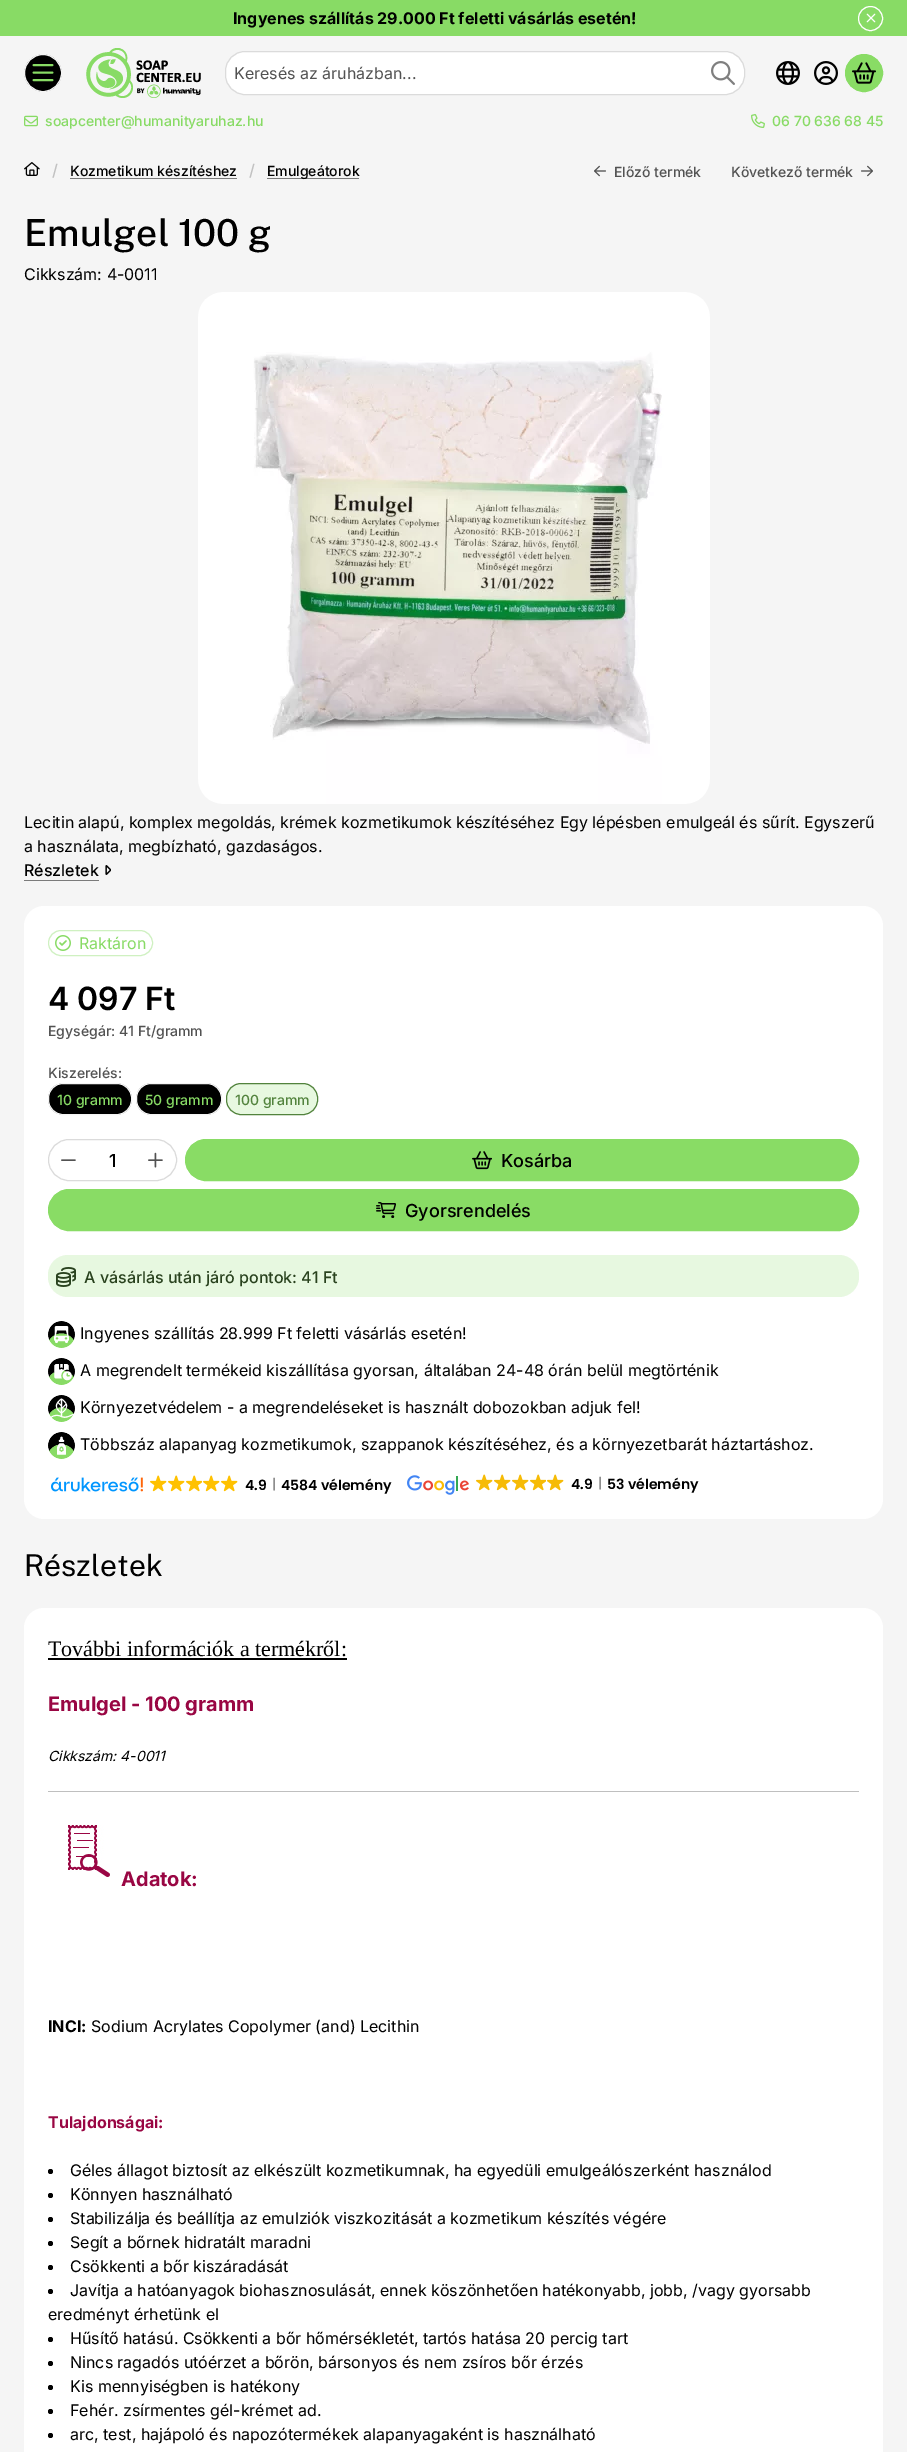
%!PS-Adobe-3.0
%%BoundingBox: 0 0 907 2452
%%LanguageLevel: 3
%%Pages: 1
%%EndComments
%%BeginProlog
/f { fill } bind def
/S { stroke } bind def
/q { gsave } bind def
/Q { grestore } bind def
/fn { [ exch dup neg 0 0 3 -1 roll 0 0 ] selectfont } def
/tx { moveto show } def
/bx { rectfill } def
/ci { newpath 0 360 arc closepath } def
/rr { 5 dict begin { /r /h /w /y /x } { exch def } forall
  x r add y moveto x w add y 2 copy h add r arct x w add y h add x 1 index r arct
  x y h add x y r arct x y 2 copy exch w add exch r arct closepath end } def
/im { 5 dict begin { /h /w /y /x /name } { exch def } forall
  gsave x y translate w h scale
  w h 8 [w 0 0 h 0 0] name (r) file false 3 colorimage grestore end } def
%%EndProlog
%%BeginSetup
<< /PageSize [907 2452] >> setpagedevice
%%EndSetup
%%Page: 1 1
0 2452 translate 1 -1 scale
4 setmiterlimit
0.961 setgray
0 0 907 2452 bx
0.533 0.859 0.396 setrgbcolor
0 0 907 36 bx
/Inter-Bold 16 fn
0 setgray
(Ingyenes szállítás 29.000 Ft feletti vásárlás esetén!) 233 24 tx
1 setgray
870.5 18.5 12 ci S
(image0.raw) 866 13 10 10 im
0 setgray
43 73 18.5 ci q f Q
0.961 setgray
S
(image1.raw) 32 64 22 18 im
(image2.raw) 86 48 115 50 im
1 setgray
225.5 51.5 519 43 19.5 rr q f Q
0.859 setgray
S
/Inter-Regular 16 fn
0.322 setgray
(Keresés az áruházban...) 234 79 tx
(image3.raw) 711 61 24 24 im
(image4.raw) 776 61 24 24 im
(image5.raw) 814 61 24 24 im
0.537 0.863 0.396 setrgbcolor
864 73 18.5 ci q f Q
S
(image6.raw) 852 62 24 22 im
(image7.raw) 24 115 14 12 im
/Inter-Medium 14 fn
0.533 0.859 0.396 setrgbcolor
(soapcenter@humanityaruhaz.hu) 45 126 tx
(image8.raw) 751 114 14 14 im
(06 70 636 68 45) 772 126 tx
(image9.raw) 24 162 16 14 im
/Inter-Medium 16 fn
0.761 setgray
(/) 52 176 tx
/Inter-Medium 14 fn
0 setgray
(Kozmetikum készítéshez) 70 176 tx
0.482 setgray
70 178 167 1 bx
/Inter-Medium 16 fn
0.761 setgray
(/) 249 176 tx
0.482 setgray
267 178 92 1 bx
/Inter-Medium 14 fn
0 setgray
(Emulgeátorok) 267 176 tx
(image10.raw) 594 165 12 12 im
0.322 setgray
(Előző termék) 614 177 tx
(Következő termék) 731 177 tx
(image11.raw) 861 165 12 12 im
/PublicSans-Medium 37.25 fn
0 setgray
(Emulgel 100 g) 24 246 tx
/Inter-Regular 16 fn
(Cikkszám: 4-0011) 24 280 tx
(image12.raw) 198 292 512 512 im
(Lecitin alapú, komplex megoldás, krémek kozmetikumok készítéséhez Egy lépésben emulgeál és sűrít. Egyszerű) 24 828 tx
(a használata, megbízható, gazdaságos.) 24 852 tx
/Inter-Medium 16 fn
(Részletek) 24 876 tx
0.482 setgray
24 880 75 1 bx
(image13.raw) 105 865 6 10 im
1 setgray
24 906 859 613 20 rr f
0.812 0.945 0.757 setrgbcolor
48.5 930.5 104 25 12.5 rr S
(image14.raw) 55 935 16 16 im
/Inter-Regular 16 fn
0.533 0.859 0.396 setrgbcolor
(Raktáron) 79 949 tx
/Inter-SemiBold 32 fn
0 setgray
(4 097 Ft) 48 1010 tx
/Inter-Medium 14 fn
0.322 setgray
(Egységár: 41 Ft/gramm) 48 1036 tx
(Kiszerelés:) 48 1078 tx
0 setgray
48.5 1083.5 83 31 14.5 rr q f Q
0.961 setgray
S
0.533 0.859 0.396 setrgbcolor
(10 gramm) 57 1105 tx
0 setgray
136.5 1083.5 85 31 14.5 rr q f Q
0.961 setgray
S
0.533 0.859 0.396 setrgbcolor
(50 gramm) 145 1105 tx
0.906 0.973 0.878 setrgbcolor
226.5 1083.5 91 31 14.5 rr q f Q
0.322 0.514 0.239 setrgbcolor
S
(100 gramm) 235 1105 tx
0.859 setgray
48.5 1139.5 128 41 20.5 rr S
(image15.raw) 61 1159 15 2 im
/Inter-Medium 18 fn
0 setgray
(1) 109 1167 tx
(image16.raw) 148 1152 15 16 im
0.537 0.863 0.396 setrgbcolor
185.5 1139.5 673 41 20.5 rr q f Q
S
(image17.raw) 472 1151 20 19 im
0 setgray
(Kosárba) 501 1167 tx
0.537 0.863 0.396 setrgbcolor
48.5 1189.5 810 41 20.5 rr q f Q
S
(image18.raw) 376 1202 20 16 im
0 setgray
(Gyorsrendelés) 405 1217 tx
0.906 0.973 0.878 setrgbcolor
48 1255 811 42 20 rr f
(image19.raw) 56 1267 20 20 im
/Inter-Medium 16 fn
0.161 0.259 0.118 setrgbcolor
(A vásárlás után járó pontok: 41 Ft) 84 1283 tx
(image20.raw) 48 1321 27 27 im
/Inter-Regular 16 fn
0 setgray
(Ingyenes szállítás 28.999 Ft feletti vásárlás esetén!) 80 1339 tx
(image21.raw) 48 1358 27 27 im
(A megrendelt termékeid kiszállítása gyorsan, általában 24-48 órán belül megtörténik) 80 1376 tx
(image22.raw) 48 1395 27 27 im
(Környezetvédelem - a megrendeléseket is használt dobozokban adjuk fel!) 80 1413 tx
(image23.raw) 48 1432 27 27 im
(Többszáz alapanyag kozmetikumok, szappanok készítéséhez, és a környezetbarát háztartáshoz.) 80 1450 tx
(image24.raw) 51 1477 92 15 im
(image25.raw) 150 1475 17 17 im
(image25.raw) 168 1475 17 17 im
(image26.raw) 186 1475 16 17 im
(image25.raw) 203 1475 17 17 im
(image25.raw) 221 1475 17 17 im
/Poppins-SemiBold 14 fn
(4.9) 245 1490 tx
/Poppins-Regular 14 fn
0.4 setgray
(|) 272 1489 tx
/Poppins-SemiBold 14 fn
0 setgray
(4584 vélemény) 281 1490 tx
(image27.raw) 407 1475 62 20 im
(image28.raw) 476 1474 17 17 im
(image28.raw) 494 1474 17 17 im
(image28.raw) 512 1474 17 17 im
(image29.raw) 530 1474 16 17 im
(image28.raw) 547 1474 17 17 im
(4.9) 571 1489 tx
/Poppins-Regular 14 fn
0.4 setgray
(|) 598 1488 tx
/Poppins-SemiBold 14 fn
0 setgray
(53 vélemény) 607 1489 tx
/PublicSans-Regular 30 fn
(Részletek) 24 1576 tx
1 setgray
24 1608 859 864 20 rr f
/LiberationSerif-Regular 22 fn
0 setgray
(További információk a termékről:) 48 1656 tx
48 1658 299 2 bx
/Inter-Bold 20 fn
0.6 0.024 0.263 setrgbcolor
(Emulgel - 100 gramm) 48 1711 tx
/Inter-Italic 14 fn
0 setgray
(Cikkszám: 4-0011) 48 1761 tx
0.749 setgray
48 1791 811 1 bx
(image30.raw) 68 1825 42 52 im
/Inter-Bold 20 fn
0.6 0.024 0.263 setrgbcolor
(Adatok:) 121 1886 tx
/Inter-Bold 16 fn
0 setgray
(INCI:) 48 2032 tx
/Inter-Regular 16 fn
(Sodium Acrylates Copolymer \(and\) Lecithin) 91 2032 tx
/Inter-Bold 16 fn
0.6 0.024 0.263 setrgbcolor
(Tulajdonságai:) 48 2128 tx
0 setgray
50.5 2171.5 2.5 ci f
/Inter-Regular 16 fn
(Géles állagot biztosít az elkészült kozmetikumnak, ha egyedüli emulgeálószerként használod) 70 2176 tx
50.5 2195.5 2.5 ci f
(Könnyen használható) 70 2200 tx
50.5 2219.5 2.5 ci f
(Stabilizálja és beállítja az emulziók viszkozitását a kozmetikum készítés végére) 70 2224 tx
50.5 2243.5 2.5 ci f
(Segít a bőrnek hidratált maradni) 70 2248 tx
50.5 2267.5 2.5 ci f
(Csökkenti a bőr kiszáradását) 70 2272 tx
50.5 2291.5 2.5 ci f
(Javítja a hatóanyagok biohasznosulását, ennek köszönhetően hatékonyabb, jobb, /vagy gyorsabb) 70 2296 tx
(eredményt érhetünk el) 48 2320 tx
50.5 2339.5 2.5 ci f
(Hűsítő hatású. Csökkenti a bőr hőmérsékletét, tartós hatása 20 percig tart) 70 2344 tx
50.5 2363.5 2.5 ci f
(Nincs ragadós utóérzet a bőrön, bársonyos és nem zsíros bőr érzés) 70 2368 tx
50.5 2387.5 2.5 ci f
(Kis mennyiségben is hatékony) 70 2392 tx
50.5 2411.5 2.5 ci f
(Fehér. zsírmentes gél-krémet ad.) 70 2416 tx
50.5 2435.5 2.5 ci f
(arc, test, hajápoló és napozótermékek alapanyagaként is használható) 70 2440 tx
showpage
%%EOF
